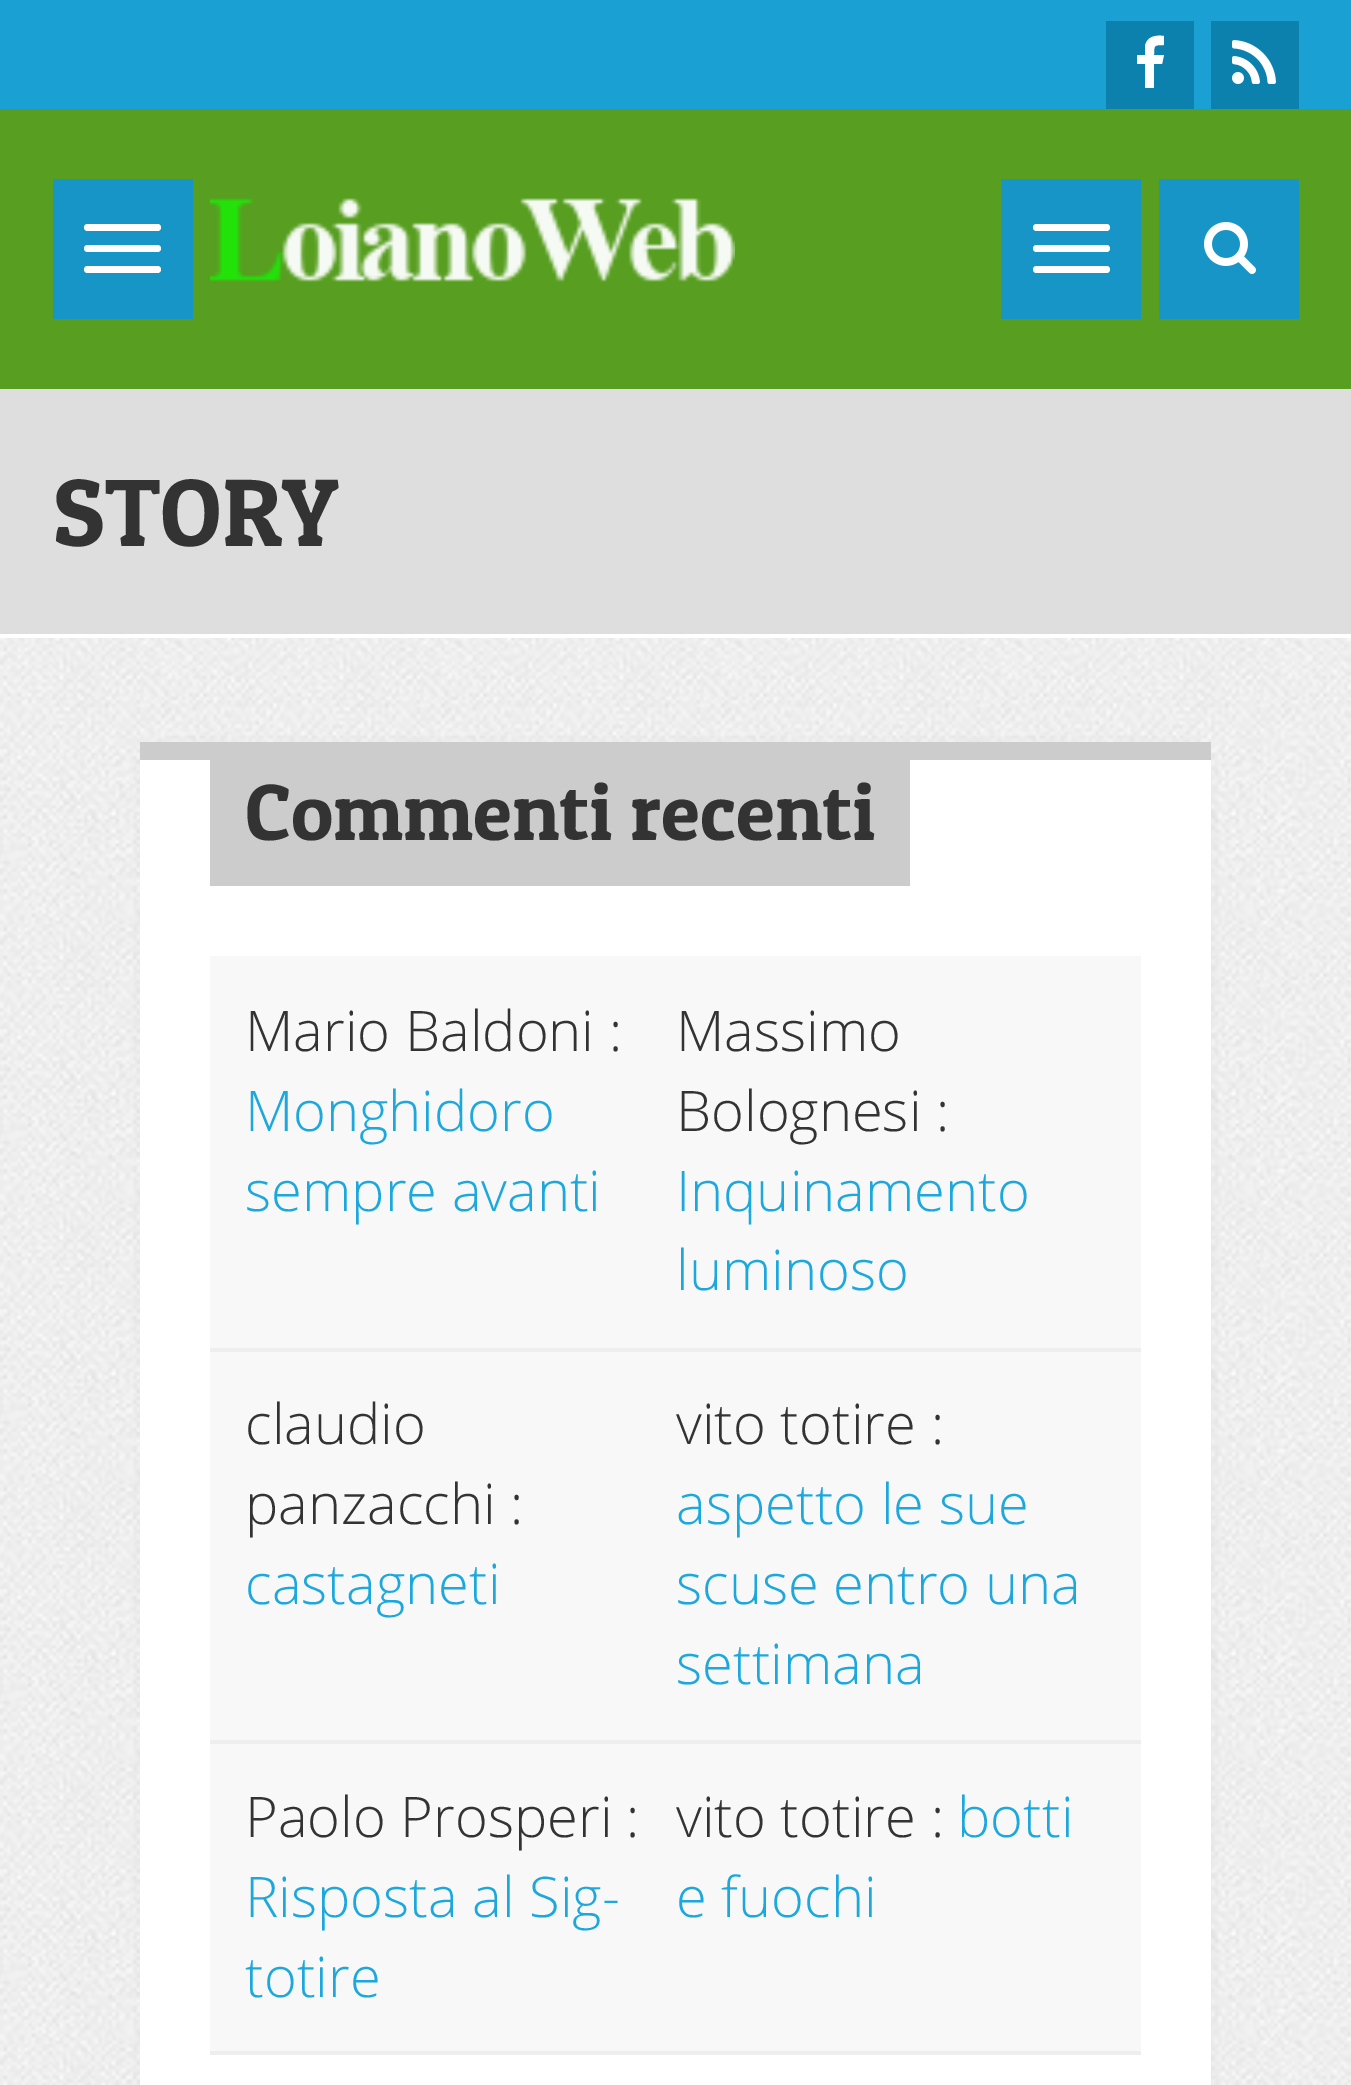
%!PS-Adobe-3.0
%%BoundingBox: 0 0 1351 2085
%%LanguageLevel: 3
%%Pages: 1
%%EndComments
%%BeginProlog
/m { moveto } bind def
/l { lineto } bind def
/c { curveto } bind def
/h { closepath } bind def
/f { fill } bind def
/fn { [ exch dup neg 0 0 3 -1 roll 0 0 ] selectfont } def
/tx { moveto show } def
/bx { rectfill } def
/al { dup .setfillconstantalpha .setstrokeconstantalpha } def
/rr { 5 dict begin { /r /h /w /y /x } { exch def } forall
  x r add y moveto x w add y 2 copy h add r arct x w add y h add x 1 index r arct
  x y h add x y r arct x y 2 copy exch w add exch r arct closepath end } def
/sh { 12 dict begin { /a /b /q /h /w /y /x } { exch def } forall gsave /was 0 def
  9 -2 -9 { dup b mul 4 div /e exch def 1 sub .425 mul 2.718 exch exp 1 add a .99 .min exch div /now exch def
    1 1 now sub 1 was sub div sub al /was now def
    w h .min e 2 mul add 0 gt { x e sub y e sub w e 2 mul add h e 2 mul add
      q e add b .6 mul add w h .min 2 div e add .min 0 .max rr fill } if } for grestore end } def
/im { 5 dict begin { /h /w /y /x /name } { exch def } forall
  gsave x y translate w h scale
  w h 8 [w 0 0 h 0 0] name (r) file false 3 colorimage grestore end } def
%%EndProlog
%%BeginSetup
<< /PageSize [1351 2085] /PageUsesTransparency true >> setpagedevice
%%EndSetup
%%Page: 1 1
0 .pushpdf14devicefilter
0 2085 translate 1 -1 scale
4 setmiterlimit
1 setgray
0 0 1351 2085 bx
(image0.raw) 0 638 1351 1447 im
0.102 0.627 0.827 setrgbcolor
0 0 1351 109 bx
0.047 0.506 0.682 setrgbcolor
1106 21 88 88 bx
1 setgray
1164 36 m 1164 45 l 1154 45 1154 45 1154 55 c 1164 55 l 1162 64 l 1154 64 l 1154 88 l 1145 88 l 1145 64 l 1137 64 l 1137 55 l 1145 55 l 1145 46 l 1147 36 1156 35 1164 36 c h f
0.047 0.506 0.682 setrgbcolor
1211 21 88 88 bx
(image1.raw) 1232 40 44 44 im
0.341 0.62 0.129 setrgbcolor
0 109 1351 280 bx
0.086 0.584 0.776 setrgbcolor
53 179 140 140 bx
1 setgray
84 224 77 7 3.5 rr f
84 245 77 7 3.5 rr f
84 266 77 7 3.5 rr f
(image2.raw) 210 198 525 84 im
0.086 0.584 0.776 setrgbcolor
1001 179 140 140 bx
1 setgray
1033 224 77 7 3.5 rr f
1033 245 77 7 3.5 rr f
1033 266 77 7 3.5 rr f
0.086 0.584 0.776 setrgbcolor
1159 179 140 140 bx
(image3.raw) 1204 222 52 52 im
0.871 setgray
0 389 1351 245 bx
/PatuaOne-Regular 96 fn
0.2 setgray
(STORY) 53 546 tx
0.6 setgray
165 767 1022 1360 0 14 1 sh
1 setgray
140 760 1071 1325 bx
0.8 setgray
140 742 1071 18 bx
210 760 700 126 bx
/PatuaOne-Regular 80 fn
0.2 setgray
(Commenti recenti) 245 840 tx
0.973 setgray
210 956 931 1095 bx
0.933 setgray
210 1348 931 4 bx
/OpenSans-Light 56 fn
0.2 setgray
(Mario Baldoni :) 245 1051 tx
0.11 0.659 0.867 setrgbcolor
(Monghidoro) 245 1131 tx
(sempre avanti) 245 1211 tx
0.2 setgray
(Massimo) 676 1051 tx
(Bolognesi :) 676 1131 tx
0.11 0.659 0.867 setrgbcolor
(Inquinamento) 676 1211 tx
(luminoso) 676 1290 tx
0.933 setgray
210 1740 931 4 bx
0.2 setgray
(claudio) 245 1444 tx
(panzacchi :) 245 1524 tx
0.11 0.659 0.867 setrgbcolor
(castagneti) 245 1604 tx
0.2 setgray
(vito totire :) 676 1444 tx
0.11 0.659 0.867 setrgbcolor
(aspetto le sue) 676 1524 tx
(scuse entro una) 676 1604 tx
(settimana) 676 1684 tx
0.933 setgray
210 2051 931 4 bx
0.2 setgray
(Paolo Prosperi) 245 1837 tx
(:) 626 1837 tx
0.11 0.659 0.867 setrgbcolor
(Risposta al Sig-) 245 1917 tx
(totire) 245 1997 tx
0.2 setgray
(vito totire :) 676 1837 tx
0.11 0.659 0.867 setrgbcolor
(botti) 957 1837 tx
(e fuochi) 676 1917 tx
.poppdf14devicefilter showpage
%%EOF
